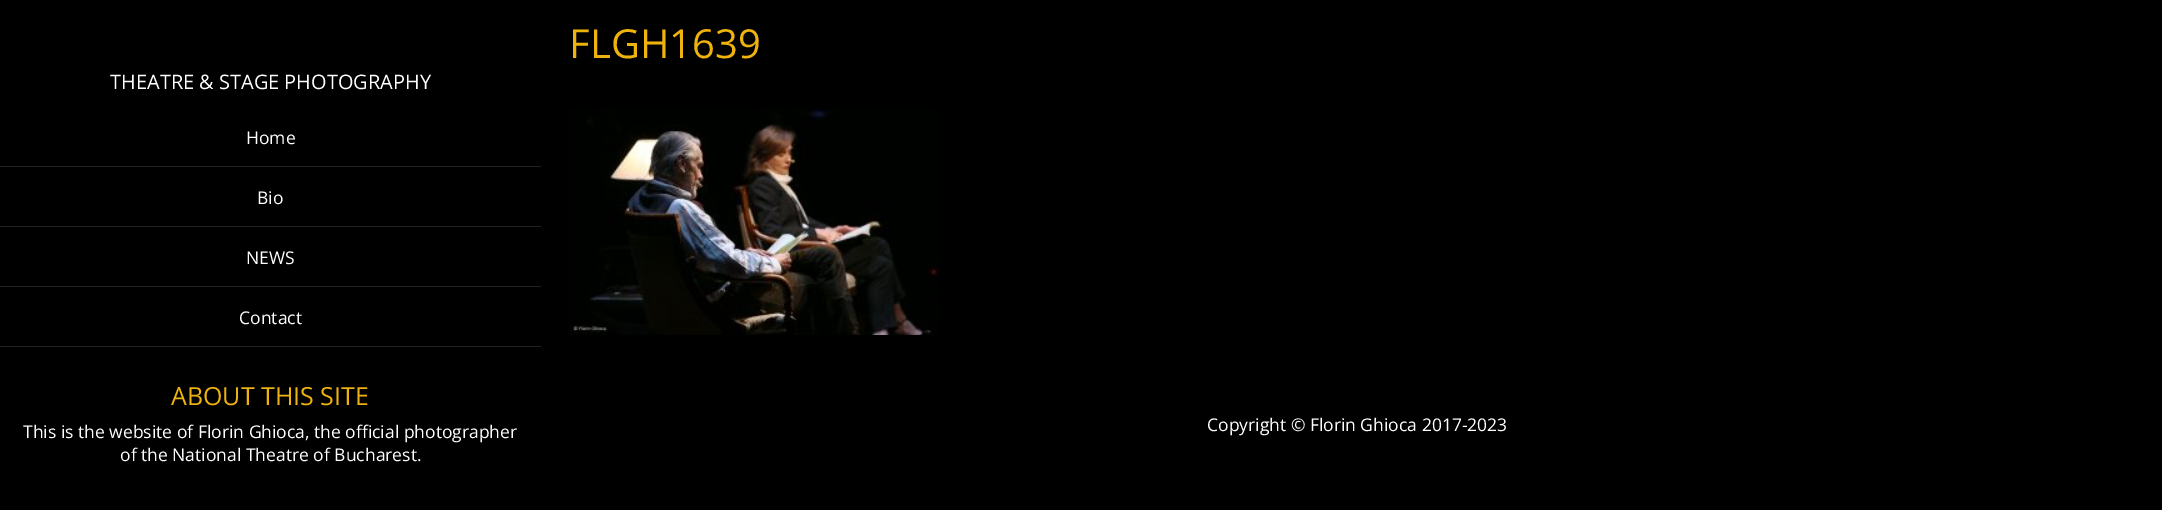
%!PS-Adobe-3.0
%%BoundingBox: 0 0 2162 510
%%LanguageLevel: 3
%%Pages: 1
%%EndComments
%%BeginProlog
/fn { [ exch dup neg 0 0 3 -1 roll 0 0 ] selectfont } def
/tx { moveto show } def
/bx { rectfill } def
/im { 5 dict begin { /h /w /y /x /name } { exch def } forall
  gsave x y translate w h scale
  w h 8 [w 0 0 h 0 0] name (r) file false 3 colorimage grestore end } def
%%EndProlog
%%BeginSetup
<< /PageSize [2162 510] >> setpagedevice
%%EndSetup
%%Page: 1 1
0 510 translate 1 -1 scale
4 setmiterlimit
0 setgray
0 0 2162 510 bx
/OpenSans-Regular 20 fn
1 setgray
(THEATRE & STAGE PHOTOGRAPHY) 110 89 tx
0.129 setgray
0 166 541 1 bx
/OpenSans-Regular 17.5 fn
1 setgray
(Home) 246 144 tx
0.129 setgray
0 226 541 1 bx
1 setgray
(Bio) 257 204 tx
0.129 setgray
0 286 541 1 bx
1 setgray
(NEWS) 246 264 tx
0.129 setgray
0 346 541 1 bx
1 setgray
(Contact) 239 324 tx
/OpenSans-Regular 25 fn
0.937 0.702 0.055 setrgbcolor
(ABOUT THIS SITE) 171 405 tx
/OpenSans-Regular 17.5 fn
1 setgray
(This is the website of Florin Ghioca, the official photographer) 23 438 tx
(of the National Theatre of Bucharest.) 120 461 tx
/OpenSans-Regular 40 fn
0.937 0.702 0.055 setrgbcolor
(FLGH1639) 569 58 tx
(image0.raw) 569 108 371 227 im
/OpenSans-Regular 17.5 fn
1 setgray
(Copyright © Florin Ghioca 2017-2023) 1207 431 tx
showpage
%%EOF
